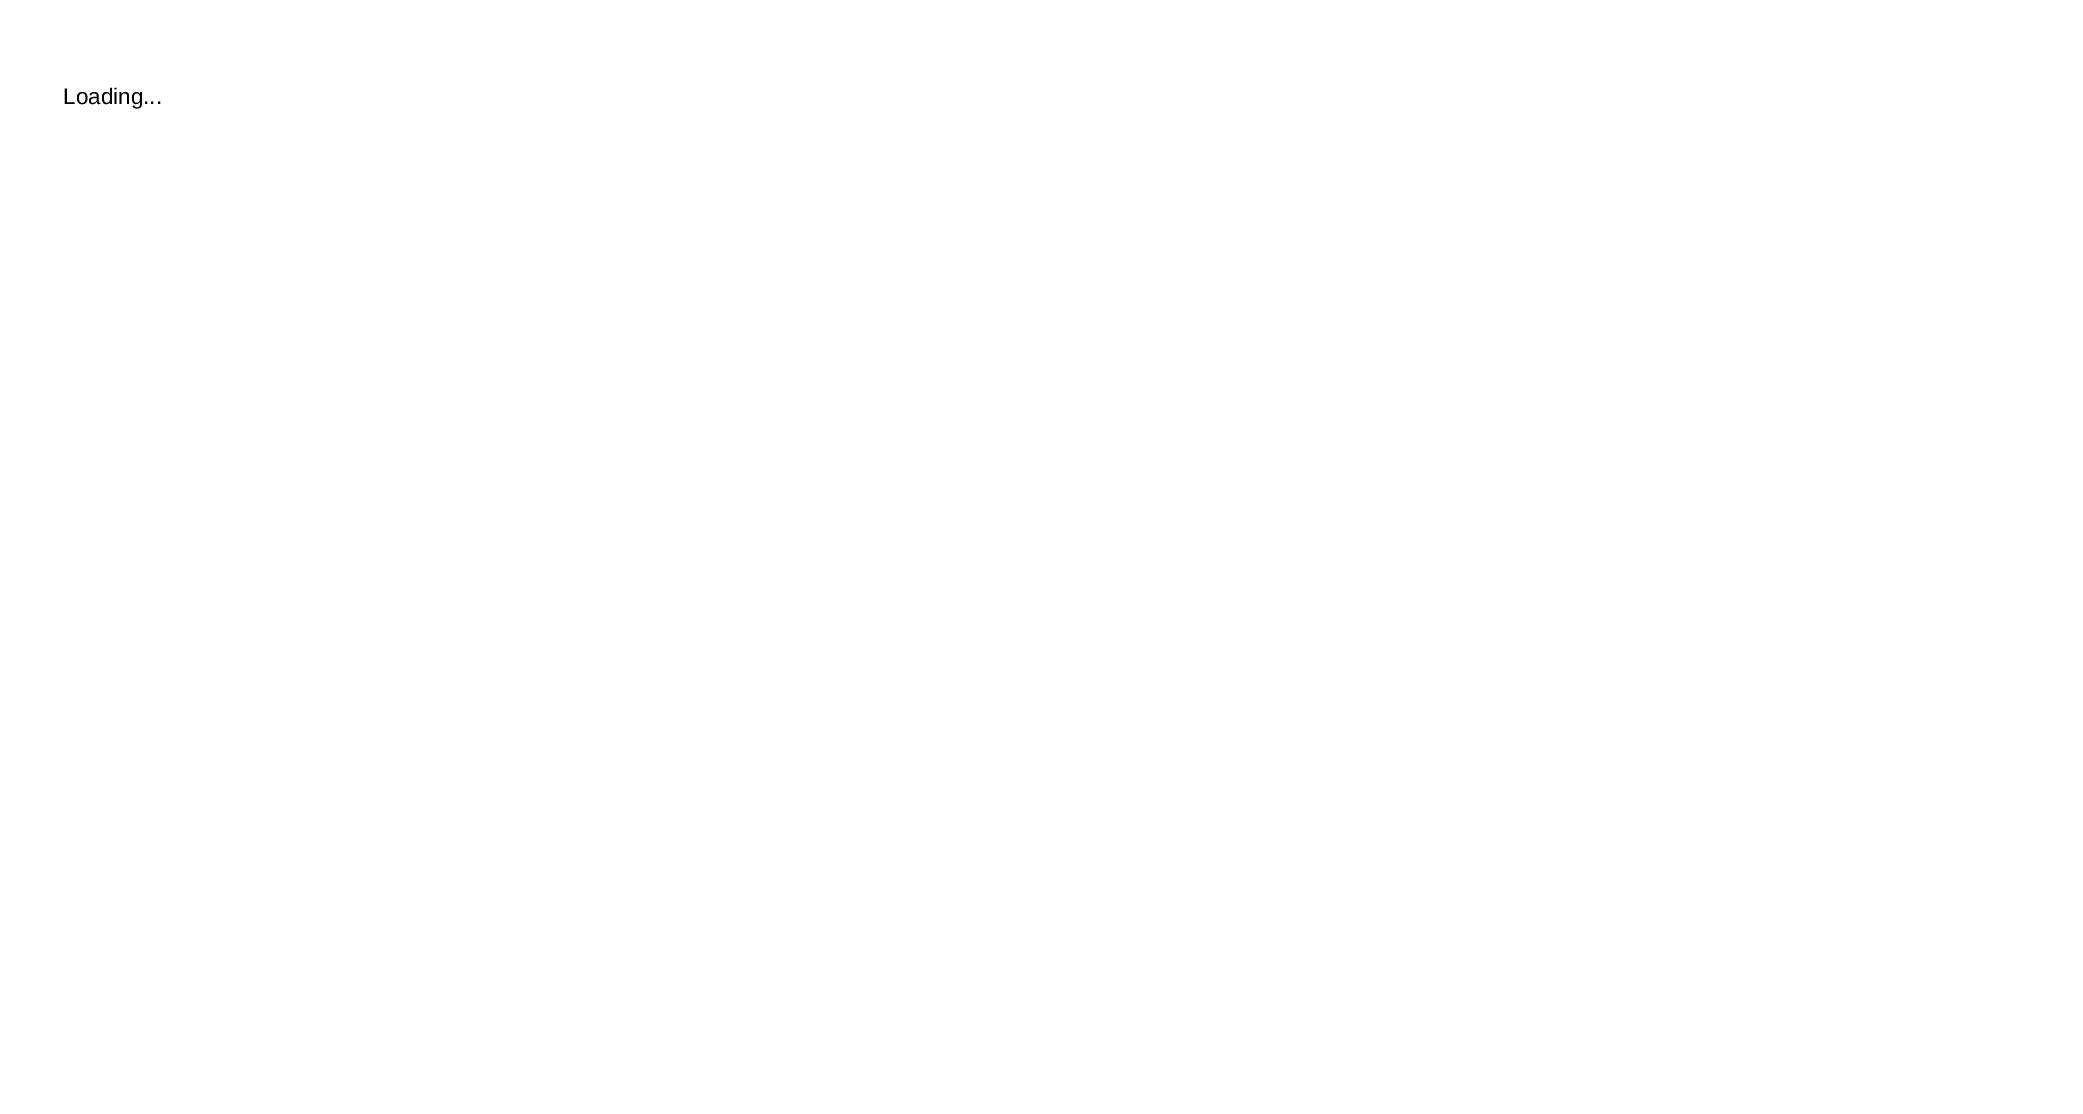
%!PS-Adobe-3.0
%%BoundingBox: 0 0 2083 1114
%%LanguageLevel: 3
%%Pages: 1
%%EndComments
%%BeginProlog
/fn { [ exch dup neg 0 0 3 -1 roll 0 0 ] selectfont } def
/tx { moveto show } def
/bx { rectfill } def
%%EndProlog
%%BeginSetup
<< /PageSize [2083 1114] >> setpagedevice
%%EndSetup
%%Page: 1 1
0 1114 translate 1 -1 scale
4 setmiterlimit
1 setgray
0 0 2083 1114 bx
/LiberationSans-Regular 22.5 fn
0 setgray
(Loading...) 63 104 tx
showpage
%%EOF
